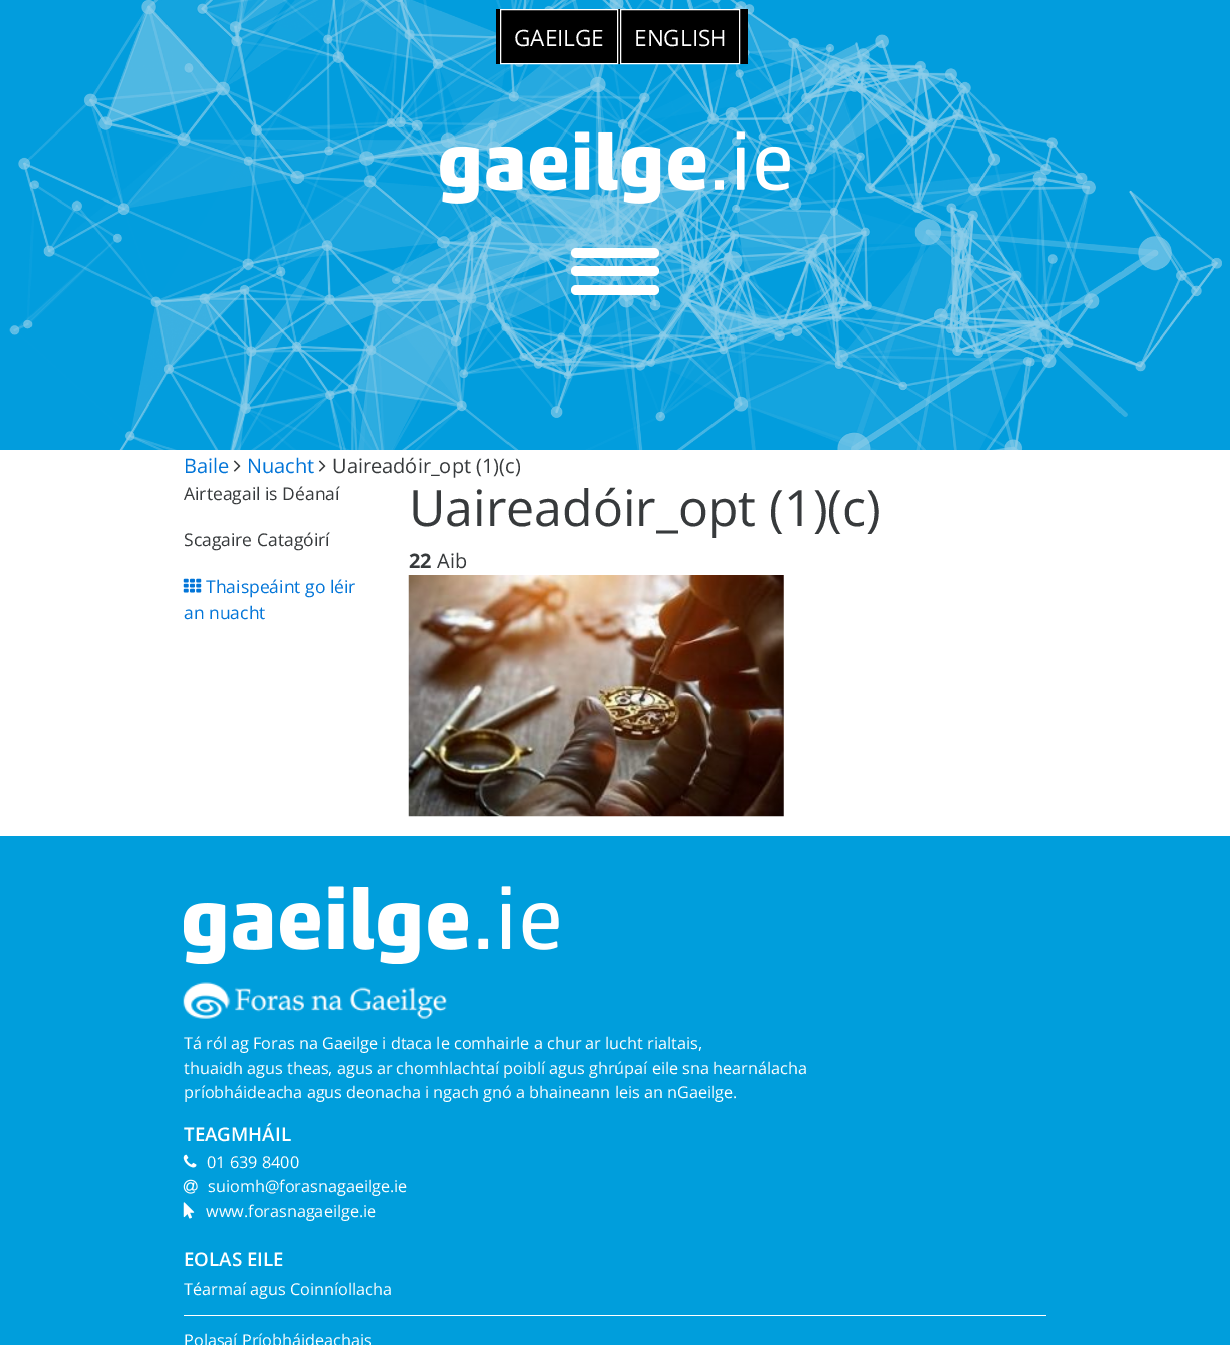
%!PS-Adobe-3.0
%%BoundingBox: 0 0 1230 1345
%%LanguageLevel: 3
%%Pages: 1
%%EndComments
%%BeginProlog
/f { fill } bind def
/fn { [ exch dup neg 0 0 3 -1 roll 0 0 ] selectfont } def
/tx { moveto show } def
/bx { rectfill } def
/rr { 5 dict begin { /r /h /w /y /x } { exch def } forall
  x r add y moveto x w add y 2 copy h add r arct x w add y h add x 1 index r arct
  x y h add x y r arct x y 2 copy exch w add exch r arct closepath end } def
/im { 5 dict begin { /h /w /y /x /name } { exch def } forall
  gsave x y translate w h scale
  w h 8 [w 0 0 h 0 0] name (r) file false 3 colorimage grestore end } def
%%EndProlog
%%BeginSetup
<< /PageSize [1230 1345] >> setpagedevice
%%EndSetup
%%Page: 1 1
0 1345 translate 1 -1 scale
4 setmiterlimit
1 setgray
0 0 1230 1345 bx
0.008 0.616 0.867 setrgbcolor
0 0 1230 450 bx
(image0.raw) 9 0 1213 450 im
(image1.raw) 440 131 350 73 im
1 setgray
571 248 88 10 5 rr f
571 266 88 10 5 rr f
571 285 88 10 5 rr f
0 setgray
496 9 252 55 bx
1 setgray
500.5 9.5 117 54 rectstroke
/OpenSans-Regular 22.5 fn
(GAEILGE) 514 46 tx
620.5 9.5 119 54 rectstroke
(ENGLISH) 634 46 tx
/OpenSans-Regular 20 fn
0.008 0.459 0.847 setrgbcolor
(Baile) 184 473 tx
(image2.raw) 233 460 8 12 im
(Nuacht) 247 473 tx
(image2.raw) 318 460 8 12 im
0.216 0.227 0.235 setrgbcolor
(Uaireadóir_opt \(1\)\(c\)) 332 473 tx
/OpenSans-Regular 17.5 fn
(Airteagail is Déanaí) 184 500 tx
(Scagaire Catagóirí) 184 546 tx
(image3.raw) 183 578 19 15 im
0.008 0.459 0.847 setrgbcolor
(Thaispeáint go léir) 206 593 tx
(an nuacht) 184 619 tx
/OpenSans-Regular 50 fn
0.216 0.227 0.235 setrgbcolor
(Uaireadóir_opt \(1\)\(c\)) 409 526 tx
/OpenSans-Bold 20 fn
(22) 409 568 tx
/OpenSans-Regular 20 fn
(Aib) 437 568 tx
(image4.raw) 408 575 376 242 im
0 0.62 0.863 setrgbcolor
0 836 1230 509 bx
(image5.raw) 184 886 375 78 im
(image6.raw) 183 982 264 37 im
/OpenSans-Regular 16.25 fn
1 setgray
(Tá ról ag Foras na Gaeilge i dtaca le comhairle a chur ar lucht rialtais,) 184 1049 tx
(thuaidh agus theas, agus ar chomhlachtaí poiblí agus ghrúpaí eile sna hearnálacha) 184 1074 tx
(príobháideacha agus deonacha i ngach gnó a bhaineann leis an nGaeilge.) 184 1098 tx
/OpenSans-SemiBold 18.75 fn
(TEAGMHÁIL) 184 1141 tx
(image7.raw) 183 1154 14 14 im
/OpenSans-Regular 16.25 fn
(01 639 8400) 207 1168 tx
(image8.raw) 183 1179 15 15 im
(suiomh@forasnagaeilge.ie) 208 1192 tx
(image9.raw) 183 1202 12 17 im
(www.forasnagaeilge.ie) 206 1217 tx
/OpenSans-SemiBold 18.75 fn
(EOLAS EILE) 184 1266 tx
184 1315 862 1 bx
/OpenSans-Regular 16.25 fn
(Téarmaí agus Coinníollacha) 184 1295 tx
(Polasaí Príobháideachais) 184 1346 tx
showpage
%%EOF
